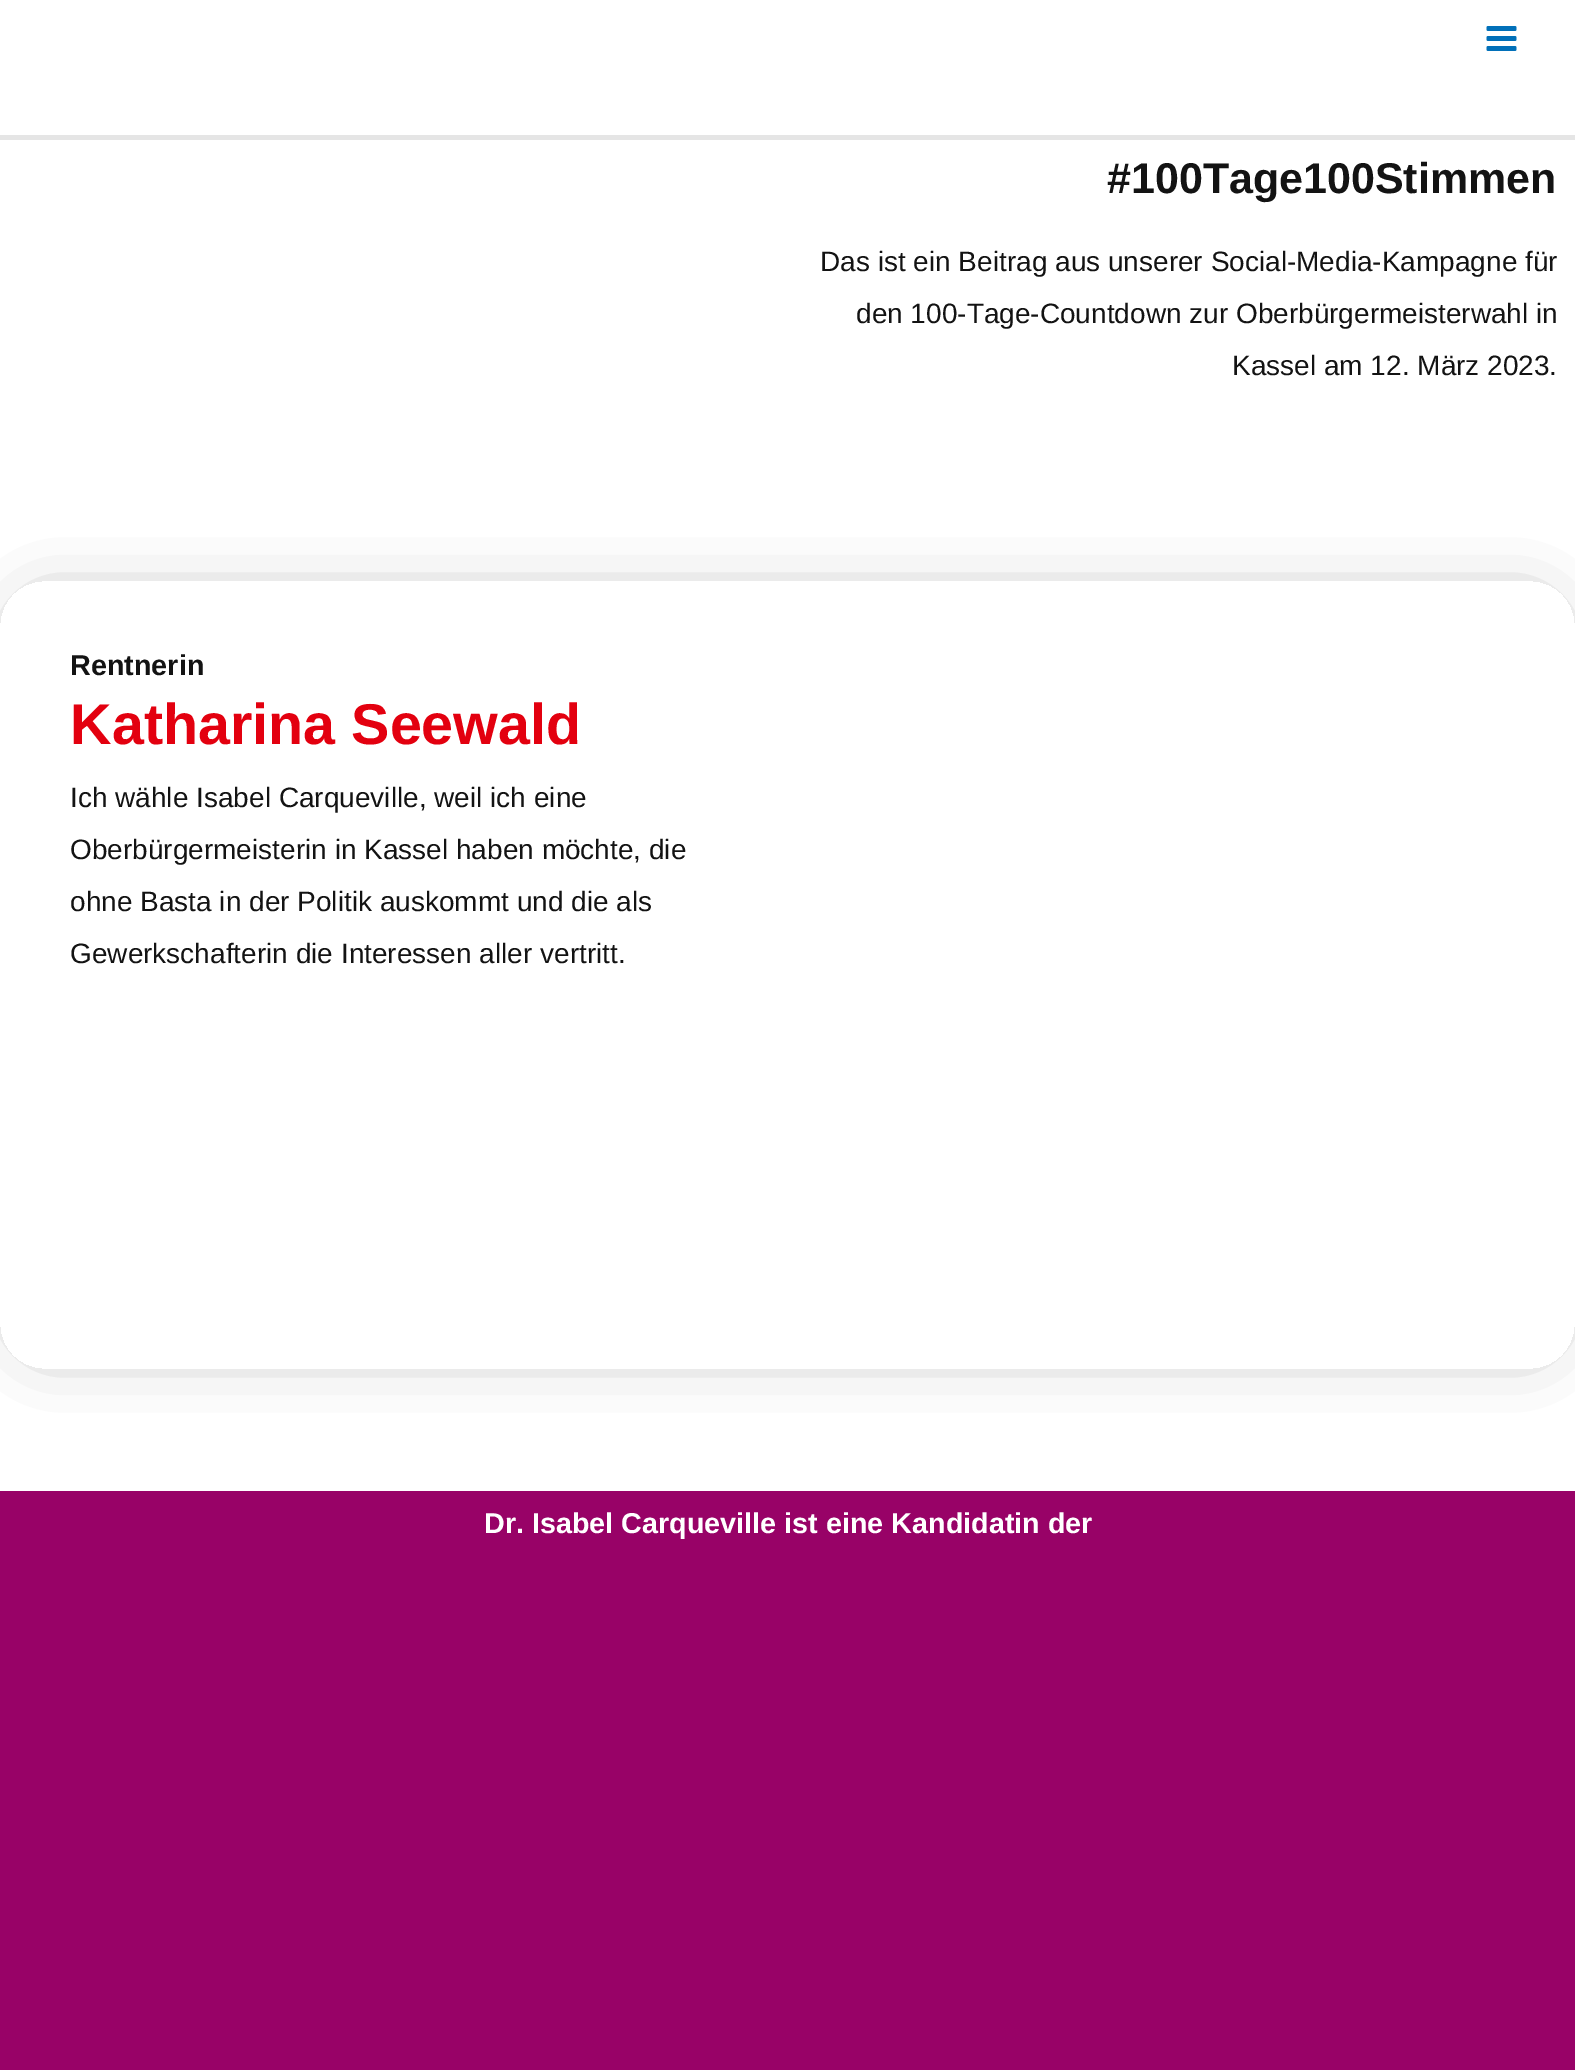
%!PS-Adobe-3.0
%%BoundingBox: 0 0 1575 2070
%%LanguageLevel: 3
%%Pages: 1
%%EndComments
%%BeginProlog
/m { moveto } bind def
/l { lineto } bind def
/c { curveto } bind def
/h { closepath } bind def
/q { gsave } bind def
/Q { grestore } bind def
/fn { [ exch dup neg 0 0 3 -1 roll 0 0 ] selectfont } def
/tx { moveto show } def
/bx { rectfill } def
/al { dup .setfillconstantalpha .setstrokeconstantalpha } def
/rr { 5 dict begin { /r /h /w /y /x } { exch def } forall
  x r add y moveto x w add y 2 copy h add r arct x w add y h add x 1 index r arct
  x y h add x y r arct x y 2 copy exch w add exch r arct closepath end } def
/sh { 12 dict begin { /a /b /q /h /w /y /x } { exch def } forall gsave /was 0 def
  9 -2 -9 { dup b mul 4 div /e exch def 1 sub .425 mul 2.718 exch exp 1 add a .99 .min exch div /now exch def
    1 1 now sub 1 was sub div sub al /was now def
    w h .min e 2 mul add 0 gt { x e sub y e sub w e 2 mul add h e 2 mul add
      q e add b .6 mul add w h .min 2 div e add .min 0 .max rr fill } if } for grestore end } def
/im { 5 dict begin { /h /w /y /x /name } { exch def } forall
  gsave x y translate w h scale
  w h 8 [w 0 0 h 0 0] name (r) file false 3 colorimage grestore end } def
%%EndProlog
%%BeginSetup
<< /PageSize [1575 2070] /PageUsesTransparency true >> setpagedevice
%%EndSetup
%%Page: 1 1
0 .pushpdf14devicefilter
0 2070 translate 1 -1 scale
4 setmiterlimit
1 setgray
0 0 1575 2070 bx
0.898 setgray
0 135 1575 5 bx
(image0.raw) 1486 26 31 25 im
/LiberationSans-Bold 43 fn
0.075 setgray
(#100Tage100Stimmen) 1107 193 tx
/LiberationSans-Regular 28 fn
(Das ist ein Beitrag aus unserer Social-Media-Kampagne für) 820 271 tx
(den 100-Tage-Countdown zur Oberbürgermeisterwahl in) 856 323 tx
(Kassel am 12. März 2023.) 1232 375 tx
q
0 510 m 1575 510 l 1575 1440 l 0 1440 l h 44 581 m 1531 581 l 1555.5 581 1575 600.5 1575 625 c 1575 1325 l 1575 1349.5 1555.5 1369 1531 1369 c 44 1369 l 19.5 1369 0 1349.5 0 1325 c 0 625 l 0 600.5 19.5 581 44 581 c h eoclip newpath
0 setgray
35 616 1505 718 9 35 0.5 sh
Q
/LiberationSans-Bold 28.75 fn
(Rentnerin) 70 675 tx
/LiberationSans-Bold 57.5 fn
0.89 0 0.059 setrgbcolor
(Katharina Seewald) 70 744 tx
/LiberationSans-Regular 28 fn
0.075 setgray
(Ich wähle Isabel Carqueville, weil ich eine) 70 807 tx
(Oberbürgermeisterin in Kassel haben möchte, die) 70 859 tx
(ohne Basta in der Politik auskommt und die als) 70 911 tx
(Gewerkschafterin die Interessen aller vertritt.) 70 963 tx
0.596 0.008 0.404 setrgbcolor
0 1491 1575 579 bx
/LiberationSans-Bold 28.75 fn
1 setgray
(Dr. Isabel Carqueville ist eine Kandidatin der) 484 1533 tx
.poppdf14devicefilter showpage
%%EOF
